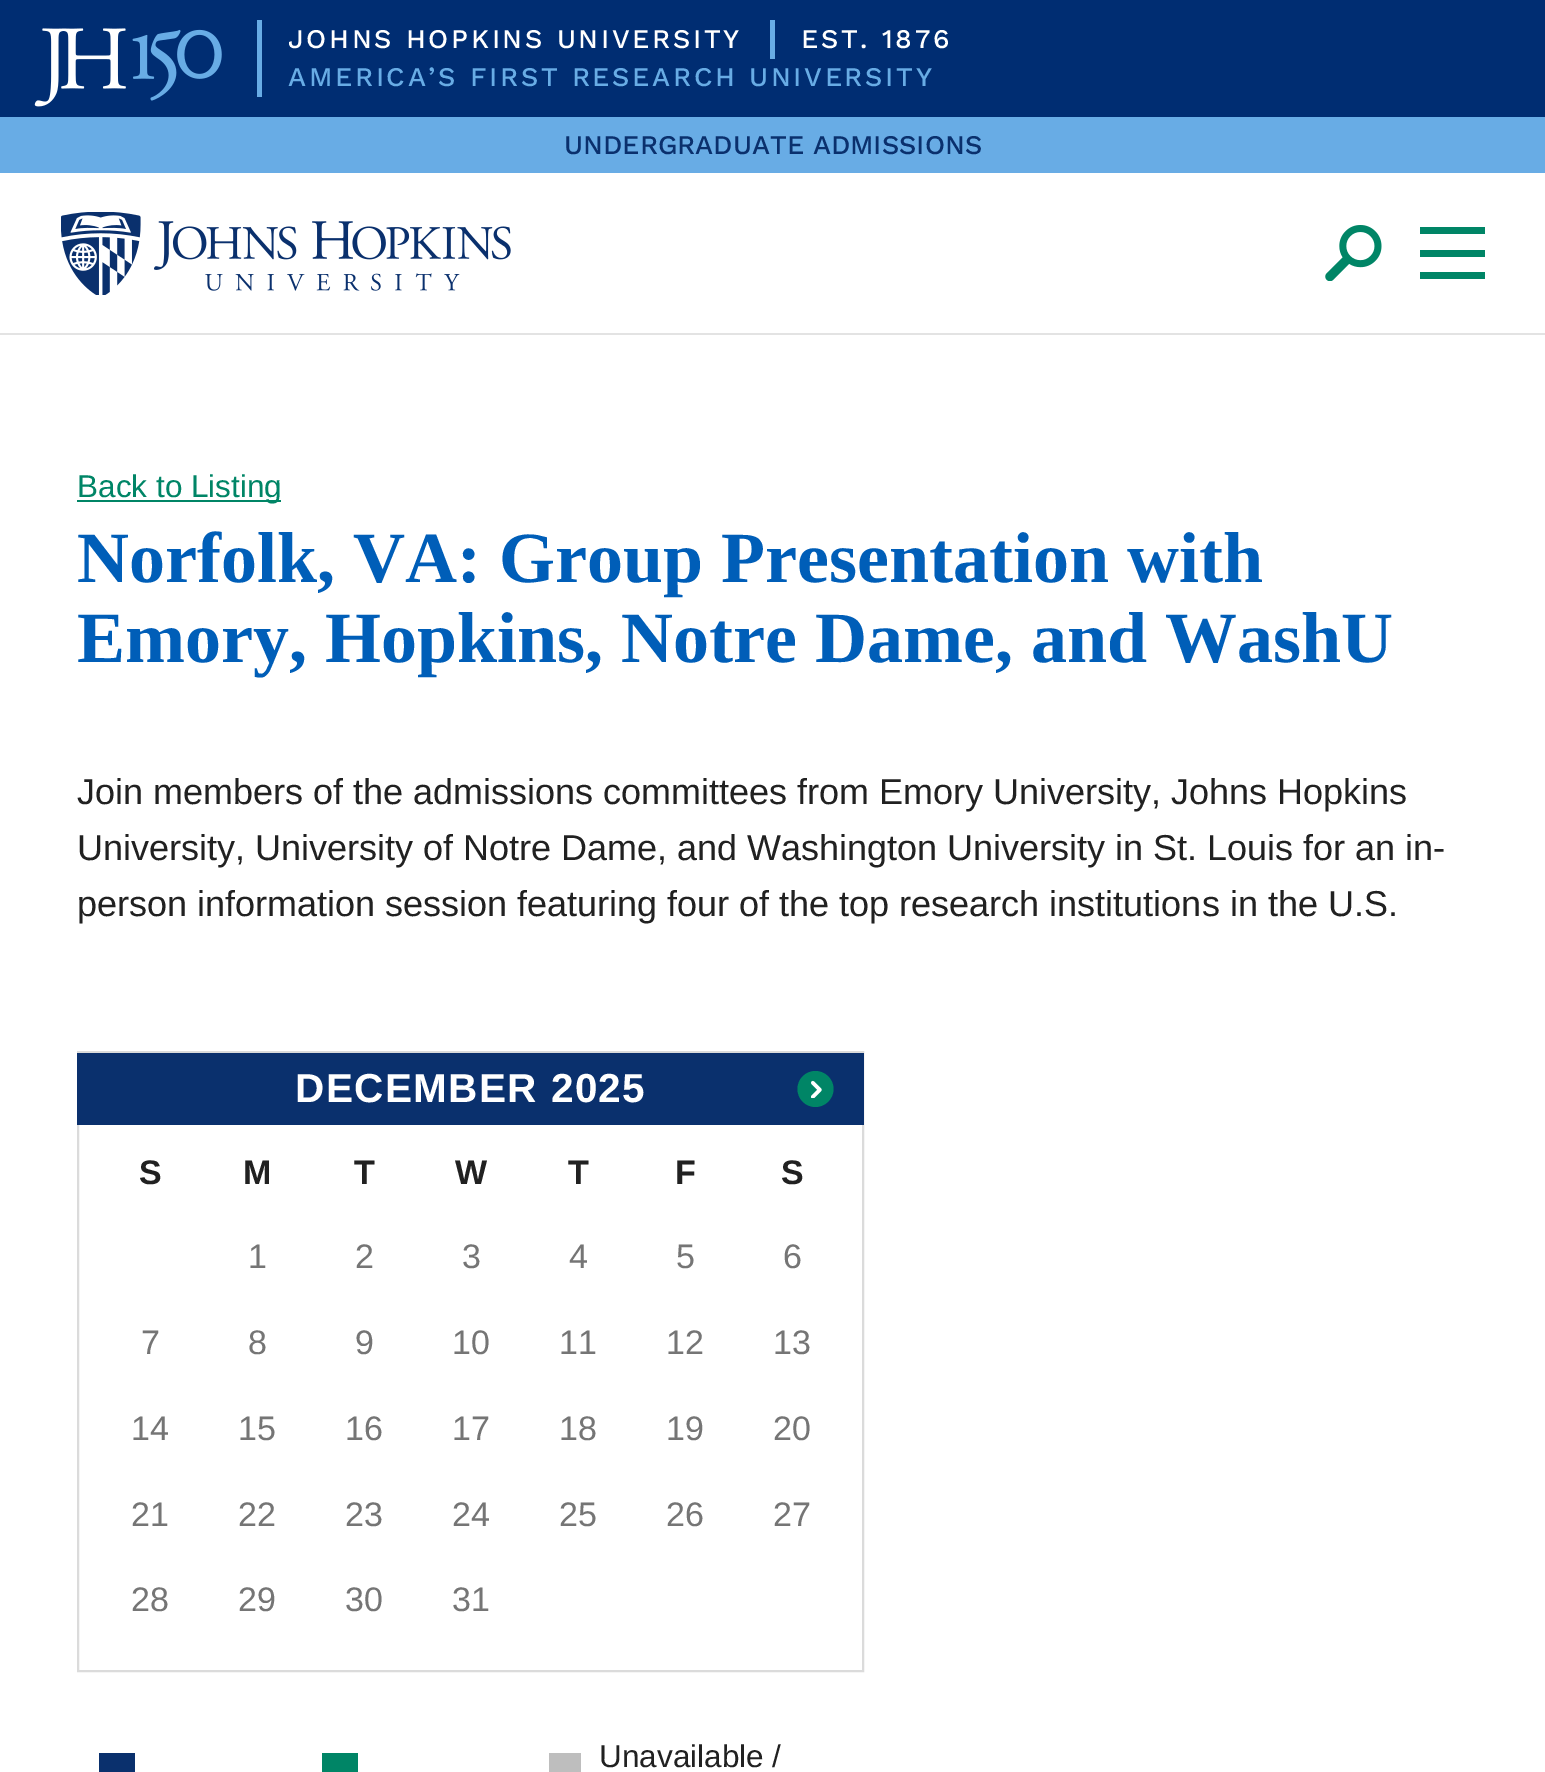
%!PS-Adobe-3.0
%%BoundingBox: 0 0 1545 1772
%%LanguageLevel: 3
%%Pages: 1
%%EndComments
%%BeginProlog
/m { moveto } bind def
/c { curveto } bind def
/h { closepath } bind def
/f { fill } bind def
/w { setlinewidth } bind def
/fn { [ exch dup neg 0 0 3 -1 roll 0 0 ] selectfont } def
/tx { moveto show } def
/bx { rectfill } def
/im { 5 dict begin { /h /w /y /x /name } { exch def } forall
  gsave x y translate w h scale
  w h 8 [w 0 0 h 0 0] name (r) file false 3 colorimage grestore end } def
%%EndProlog
%%BeginSetup
<< /PageSize [1545 1772] >> setpagedevice
%%EndSetup
%%Page: 1 1
0 1772 translate 1 -1 scale
4 setmiterlimit
1 setgray
0 0 1545 1772 bx
0 0.176 0.447 setrgbcolor
0 0 1545 117 bx
(image0.raw) 34 28 188 79 im
0.408 0.675 0.898 setrgbcolor
257 20 5 77 bx
/WorkSans-Medium 27 fn
1 setgray
288 48 m 2.7 0 (JOHNS HOPKINS UNIVERSITY) ashow
0.408 0.675 0.898 setrgbcolor
770 20 5 39 bx
1 setgray
801 48 m 2.7 0 (EST. 1876) ashow
0.408 0.675 0.898 setrgbcolor
288 86 m 2.7 0 (AMERICA’S FIRST RESEARCH UNIVERSITY) ashow
0.89 setgray
0 333 1545 2 bx
0.408 0.675 0.898 setrgbcolor
0 117 1545 56 bx
0.039 0.188 0.427 setrgbcolor
(UNDERGRADUATE ADMISSIONS) 564 154 tx
(image1.raw) 61 212 450 83 im
(image2.raw) 1325 225 57 56 im
0 0.522 0.4 setrgbcolor
1420 227 65 7 bx
1420 250 65 7 bx
1420 272 65 7 bx
77 500 204 2 bx
/LiberationSans-Regular 31.5 fn
(Back to Listing) 77 497 tx
/LiberationSerif-Bold 72 fn
0 0.369 0.722 setrgbcolor
(Norfolk, VA: Group Presentation with) 77 582 tx
(Emory, Hopkins, Notre Dame, and WashU) 77 662 tx
/LiberationSans-Regular 36 fn
0.129 setgray
(Join members of the admissions committees from Emory University, Johns Hopkins) 77 804 tx
(University, University of Notre Dame, and Washington University in St. Louis for an in-) 77 860 tx
(person information session featuring four of the top research institutions in the U.S.) 77 916 tx
0.859 setgray
2 w
78 1052 785 619 rectstroke
0.039 0.188 0.427 setrgbcolor
77 1053 787 72 bx
/LiberationSans-Bold 40.5 fn
1 setgray
295 1102 m 1.4 0 (DECEMBER 2025) ashow
0 0.522 0.4 setrgbcolor
797.5 1089 m 797.5 1079 805.5 1071 815.5 1071 c 825 1071 833.5 1079 833.5 1089 c 833.5 1099 825 1107 815.5 1107 c 805.5 1107 797.5 1099 797.5 1089 c h f
(image3.raw) 811 1080 11 19 im
/LiberationSans-Bold 34 fn
0.129 setgray
(S) 139 1184 tx
(M) 243 1184 tx
(T) 354 1184 tx
(W) 455 1184 tx
(T) 568 1184 tx
(F) 675 1184 tx
(S) 781 1184 tx
/LiberationSans-Regular 34 fn
0.459 setgray
(1) 248 1268 tx
(2) 355 1268 tx
(3) 462 1268 tx
(4) 569 1268 tx
(5) 676 1268 tx
(6) 783 1268 tx
(7) 141 1354 tx
(8) 248 1354 tx
(9) 355 1354 tx
(10) 452 1354 tx
(11) 559 1354 tx
(12) 666 1354 tx
(13) 773 1354 tx
(14) 131 1440 tx
(15) 238 1440 tx
(16) 345 1440 tx
(17) 452 1440 tx
(18) 559 1440 tx
(19) 666 1440 tx
(20) 773 1440 tx
(21) 131 1526 tx
(22) 238 1526 tx
(23) 345 1526 tx
(24) 452 1526 tx
(25) 559 1526 tx
(26) 666 1526 tx
(27) 773 1526 tx
(28) 131 1611 tx
(29) 238 1611 tx
(30) 345 1611 tx
(31) 452 1611 tx
0.039 0.188 0.427 setrgbcolor
99 1753 36 19 bx
0 0.522 0.4 setrgbcolor
322 1753 36 19 bx
0.745 setgray
549 1753 32 19 bx
/LiberationSans-Regular 31.5 fn
0.129 setgray
(Unavailable /) 599 1767 tx
showpage
%%EOF
